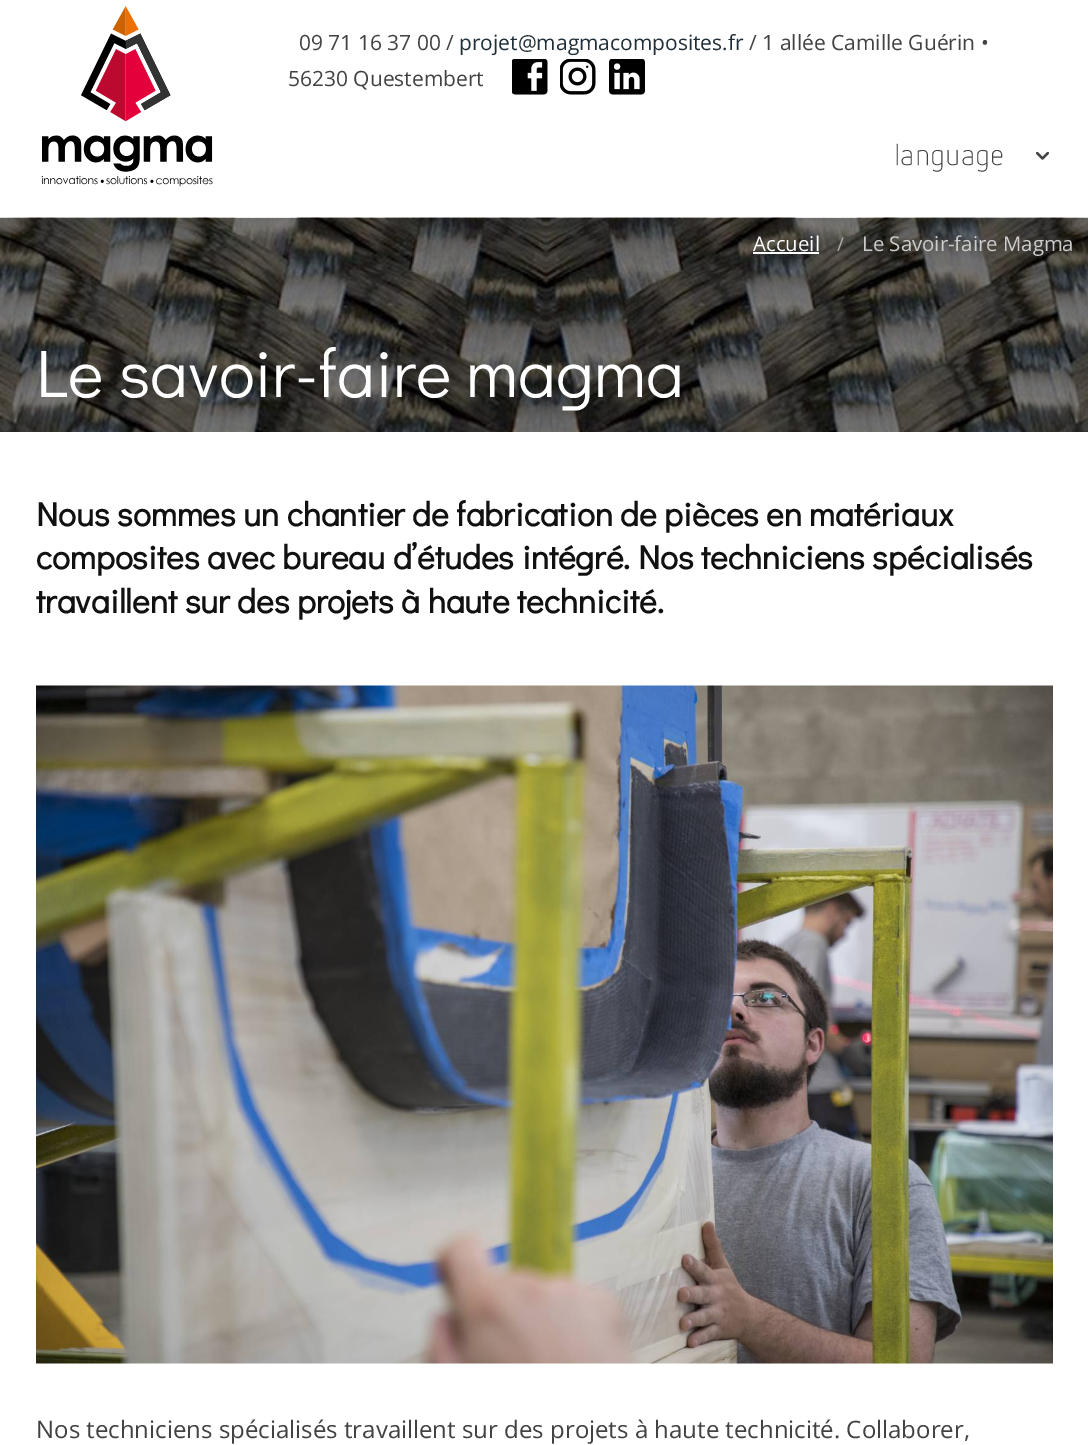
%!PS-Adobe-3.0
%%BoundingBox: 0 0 1088 1445
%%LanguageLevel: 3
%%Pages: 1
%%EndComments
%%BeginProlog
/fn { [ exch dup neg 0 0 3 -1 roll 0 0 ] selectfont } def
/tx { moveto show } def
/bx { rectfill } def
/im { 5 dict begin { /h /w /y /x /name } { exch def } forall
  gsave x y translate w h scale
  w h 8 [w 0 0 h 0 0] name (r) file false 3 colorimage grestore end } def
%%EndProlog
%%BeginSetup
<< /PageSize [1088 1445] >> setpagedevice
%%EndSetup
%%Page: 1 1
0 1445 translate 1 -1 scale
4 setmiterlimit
1 setgray
0 0 1088 1445 bx
(image0.raw) 41 6 172 181 im
/OpenSans-Regular 21 fn
0.259 setgray
(09 71 16 37 00 /) 299 50 tx
0.129 0.184 0.22 setrgbcolor
(projet@magmacomposites.fr) 459 50 tx
0.259 setgray
(/ 1 allée Camille Guérin •) 749 50 tx
(56230 Questembert) 288 86 tx
(image1.raw) 512 59 36 36 im
(image2.raw) 560 59 36 36 im
(image3.raw) 609 59 36 36 im
/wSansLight-Light 30 fn
(language) 894 165 tx
(image4.raw) 1036 151 13 9 im
(image5.raw) 0 217 1088 215 im
/OpenSans-Regular 20.4 fn
1 setgray
(Accueil) 753 251 tx
753 252 66 2 bx
/OpenSans-Regular 19 fn
0.686 0.682 0.671 setrgbcolor
(/) 837 251 tx
/OpenSans-Regular 20.4 fn
0.8 setgray
(Le Savoir-faire Magma) 862 251 tx
/DidactGothic-Regular 67.5 fn
1 setgray
(Le savoir-faire magma) 36 397 tx
/DidactGothic-Bold 33.6 fn
0.067 setgray
(Nous sommes un chantier de fabrication de pièces en matériaux) 36 526 tx
(composites avec bureau d’études intégré. Nos techniciens spécialisés) 36 569 tx
(travaillent sur des projets à haute technicité.) 36 613 tx
(image6.raw) 36 685 1017 679 im
/OpenSans-Regular 24 fn
0.259 setgray
(Nos techniciens spécialisés travaillent sur des projets à haute technicité. Collaborer,) 36 1438 tx
showpage
%%EOF
